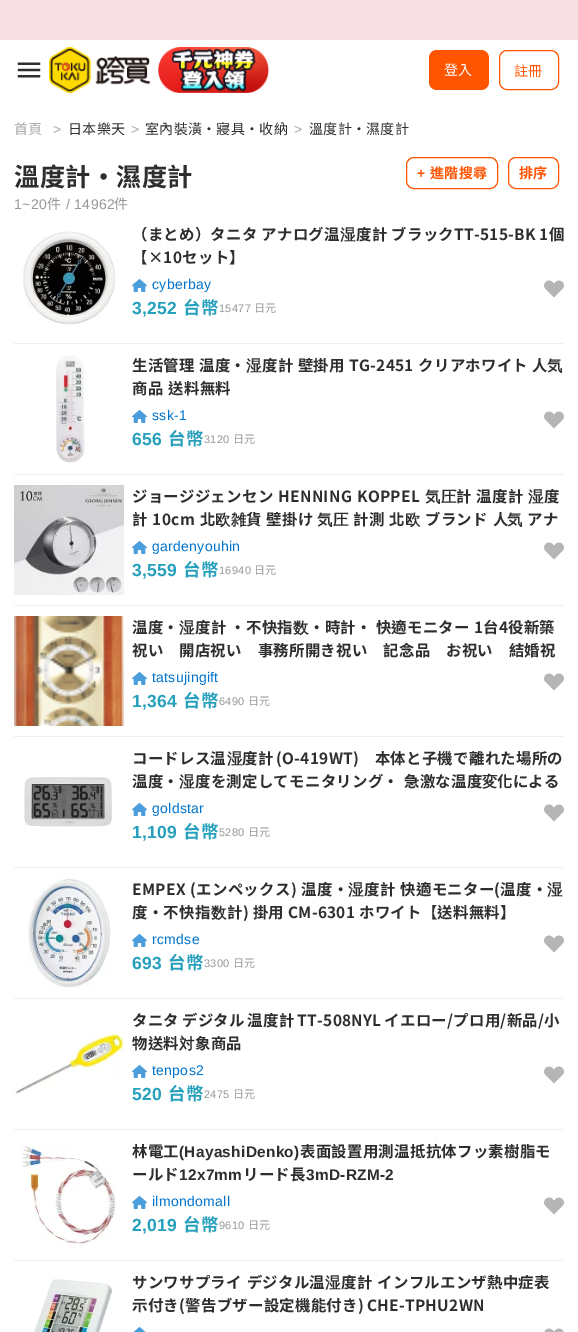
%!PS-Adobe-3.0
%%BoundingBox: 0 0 578 1332
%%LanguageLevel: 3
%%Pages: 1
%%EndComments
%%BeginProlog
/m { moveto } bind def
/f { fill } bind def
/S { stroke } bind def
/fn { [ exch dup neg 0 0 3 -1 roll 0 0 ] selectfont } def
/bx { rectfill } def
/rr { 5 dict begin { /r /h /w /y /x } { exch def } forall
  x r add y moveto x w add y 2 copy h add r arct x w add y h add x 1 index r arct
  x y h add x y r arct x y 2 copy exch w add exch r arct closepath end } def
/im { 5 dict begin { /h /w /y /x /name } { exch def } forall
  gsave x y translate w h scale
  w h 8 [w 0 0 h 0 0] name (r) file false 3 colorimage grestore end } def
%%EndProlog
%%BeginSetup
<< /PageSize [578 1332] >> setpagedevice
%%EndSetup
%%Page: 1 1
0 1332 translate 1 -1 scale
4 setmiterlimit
1 setgray
0 0 578 1332 bx
0.973 0.882 0.894 setrgbcolor
0 0 578 40 bx
(image0.raw) 17 62 24 16 im
(image1.raw) 49 47 220 46 im
1 0.329 0 setrgbcolor
429 50 60 40 8 rr f
/NotoSansTC-Regular 14 fn
1 setgray
444 75 m 0.3 0 (登入) ashow
1 0.329 0 setrgbcolor
499.5 50.5 59 39 7.5 rr S
514 76 m 0.3 0 (註冊) ashow
0.667 setgray
14 134 m 0.3 0 (首頁) ashow
/LiberationSans-Regular 14 fn
53 134 m 0.3 0 (>) ashow
/NotoSansTC-Regular 14 fn
0.18 0.18 0.184 setrgbcolor
68 134 m 0.3 0 (日本樂天) ashow
/LiberationSans-Regular 14 fn
0.667 setgray
131 134 m 0.3 0 (>) ashow
/NotoSansTC-Regular 14 fn
0.18 0.18 0.184 setrgbcolor
145 134 m 0.3 0 (室內裝潢・寢具・收納) ashow
/LiberationSans-Regular 14 fn
0.667 setgray
294 134 m 0.3 0 (>) ashow
/NotoSansTC-Regular 14 fn
0.18 0.18 0.184 setrgbcolor
309 134 m 0.3 0 (溫度計・濕度計) ashow
/NotoSansTC-Bold 25.25 fn
14 186 m 0.3 0 (溫度計・濕度計) ashow
/LiberationSans-Regular 14 fn
0.592 setgray
14 209 m 0.3 0 (1~20) ashow
/NotoSansTC-Regular 14 fn
47 209 m 0.3 0 (件) ashow
/LiberationSans-Regular 14 fn
66 209 m 0.3 0 (/ 14962) ashow
/NotoSansTC-Regular 14 fn
114 209 m 0.3 0 (件) ashow
1 0.329 0 setrgbcolor
406.5 157.5 91 31 7.5 rr S
/LiberationSans-Bold 14 fn
417 178 m 0.3 0 (+) ashow
/NotoSansTC-Bold 14 fn
430 178 m 0.3 0 (進階搜尋) ashow
508.5 157.5 50 31 7.5 rr S
519 178 m 0.3 0 (排序) ashow
0.937 setgray
14 343 550 1 bx
(image2.raw) 23 231 93 94 im
/NotoSansTC-Bold 15.4 fn
0.18 0.18 0.184 setrgbcolor
132 240 m 0.3 0 (（まとめ）タニタ アナログ温) ashow
/WenQuanYiZenHei-Bold 15.4 fn
340 240 m 0.3 0 (湿) ashow
/NotoSansTC-Bold 15.4 fn
356 240 m 0.3 0 (度計 ブラックTT-515-BK 1個) ashow
132 263 m 0.3 0 (【×10セット】) ashow
(image3.raw) 132 279 15 13 im
/LiberationSans-Regular 14 fn
0 0.451 0.8 setrgbcolor
152 289 m 0.3 0 (cyberbay) ashow
/LiberationSans-Bold 17.5 fn
0.149 0.627 0.741 setrgbcolor
132 314 m 0.3 0 (3,252) ashow
/NotoSansTC-Bold 17.5 fn
183 314 m 0.3 0 (台幣) ashow
/LiberationSans-Regular 11 fn
0.592 setgray
219 312 m 0.3 0 (15477) ashow
/NotoSansTC-Regular 11 fn
254 312 m 0.3 0 (日元) ashow
(image4.raw) 544 280 20 18 im
0.937 setgray
14 474 550 1 bx
(image5.raw) 56 355 29 108 im
/NotoSansTC-Bold 15.4 fn
0.18 0.18 0.184 setrgbcolor
132 371 m 0.5 0 32 0.3 0 (生活管理 温度・) awidthshow
/WenQuanYiZenHei-Bold 15.4 fn
246 371 m 0.3 0 (湿) ashow
/NotoSansTC-Bold 15.4 fn
262 371 m 0.5 0 32 0.3 0 (度計 壁掛用 TG-2451 クリアホワイト 人) awidthshow
/WenQuanYiZenHei-Bold 15.4 fn
547 371 m 0.3 0 (気) ashow
/NotoSansTC-Bold 15.4 fn
132 394 m 1 0 32 0.3 0 (商品 送料無料) awidthshow
(image3.raw) 132 410 15 13 im
/LiberationSans-Regular 14 fn
0 0.451 0.8 setrgbcolor
152 420 m 0.3 0 (ssk-1) ashow
/LiberationSans-Bold 17.5 fn
0.149 0.627 0.741 setrgbcolor
132 445 m 0.3 0 (656) ashow
/NotoSansTC-Bold 17.5 fn
168 445 m 0.3 0 (台幣) ashow
/LiberationSans-Regular 11 fn
0.592 setgray
204 443 m 0.3 0 (3120) ashow
/NotoSansTC-Regular 11 fn
233 443 m 0.3 0 (日元) ashow
(image4.raw) 544 411 20 18 im
0.937 setgray
14 605 550 1 bx
(image6.raw) 14 485 110 110 im
/NotoSansTC-Bold 15.4 fn
0.18 0.18 0.184 setrgbcolor
132 502 m 1 0 32 0.3 0 (ジョージジェンセン HENNING KOPPEL) awidthshow
/WenQuanYiZenHei-Bold 15.4 fn
425 502 m 0.3 0 (気圧) ashow
/NotoSansTC-Bold 15.4 fn
456 502 m 1 0 32 0.3 0 (計 温度計) awidthshow
/WenQuanYiZenHei-Bold 15.4 fn
528 502 m 0.3 0 (湿) ashow
/NotoSansTC-Bold 15.4 fn
544 502 m 0.3 0 (度) ashow
132 525 m 1 0 32 0.3 0 (計 10cm 北) awidthshow
/WenQuanYiZenHei-Bold 15.4 fn
215 525 m 0.3 0 (欧雑) ashow
/NotoSansTC-Bold 15.4 fn
246 525 m 1 0 32 0.3 0 (貨 壁掛け) awidthshow
/WenQuanYiZenHei-Bold 15.4 fn
317 525 m 0.3 0 (気圧) ashow
/NotoSansTC-Bold 15.4 fn
353 525 m 1 0 32 0.3 0 (計測 北) awidthshow
/WenQuanYiZenHei-Bold 15.4 fn
405 525 m 0.3 0 (欧) ashow
/NotoSansTC-Bold 15.4 fn
425 525 m 1 0 32 0.3 0 (ブランド 人) awidthshow
/WenQuanYiZenHei-Bold 15.4 fn
507 525 m 0.3 0 (気) ashow
/NotoSansTC-Bold 15.4 fn
527 525 m 0.3 0 (アナ) ashow
(image3.raw) 132 541 15 13 im
/LiberationSans-Regular 14 fn
0 0.451 0.8 setrgbcolor
152 551 m 0.3 0 (gardenyouhin) ashow
/LiberationSans-Bold 17.5 fn
0.149 0.627 0.741 setrgbcolor
132 576 m 0.3 0 (3,559) ashow
/NotoSansTC-Bold 17.5 fn
183 576 m 0.3 0 (台幣) ashow
/LiberationSans-Regular 11 fn
0.592 setgray
219 574 m 0.3 0 (16940) ashow
/NotoSansTC-Regular 11 fn
254 574 m 0.3 0 (日元) ashow
(image4.raw) 544 542 20 18 im
0.937 setgray
14 736 550 1 bx
(image7.raw) 14 616 110 110 im
/NotoSansTC-Bold 15.4 fn
0.18 0.18 0.184 setrgbcolor
132 633 m 0.3 0 (温度・) ashow
/WenQuanYiZenHei-Bold 15.4 fn
179 633 m 0.3 0 (湿) ashow
/NotoSansTC-Bold 15.4 fn
195 633 m 0.3 0 (度計 ・不快指) ashow
/WenQuanYiZenHei-Bold 15.4 fn
293 633 m 0.3 0 (数) ashow
/NotoSansTC-Bold 15.4 fn
309 633 m 0.3 0 (・時計・ 快適モニター 1台4役新築) ashow
132 656 m 0.3 0 (祝い　開店祝い　事務所開き祝い　記念品　お祝い　結婚祝) ashow
(image3.raw) 132 672 15 13 im
/LiberationSans-Regular 14 fn
0 0.451 0.8 setrgbcolor
152 682 m 0.3 0 (tatsujingift) ashow
/LiberationSans-Bold 17.5 fn
0.149 0.627 0.741 setrgbcolor
132 707 m 0.3 0 (1,364) ashow
/NotoSansTC-Bold 17.5 fn
183 707 m 0.3 0 (台幣) ashow
/LiberationSans-Regular 11 fn
0.592 setgray
219 705 m 0.3 0 (6490) ashow
/NotoSansTC-Regular 11 fn
248 705 m 0.3 0 (日元) ashow
(image4.raw) 544 673 20 18 im
0.937 setgray
14 867 550 1 bx
/NotoSansTC-Bold 15.4 fn
0.18 0.18 0.184 setrgbcolor
132 764 m 0.3 0 (コードレス温) ashow
/WenQuanYiZenHei-Bold 15.4 fn
227 764 m 0.3 0 (湿) ashow
/NotoSansTC-Bold 15.4 fn
242 764 m -1 0 32 0.3 0 (度計 \(O-419WT\)　本体と子機で離れた場所の) awidthshow
132 787 m 0.3 0 (温度・) ashow
/WenQuanYiZenHei-Bold 15.4 fn
179 787 m 0.3 0 (湿) ashow
/NotoSansTC-Bold 15.4 fn
195 787 m 1 0 32 0.3 0 (度を測定してモニタリング・ 急激な温度) awidthshow
/WenQuanYiZenHei-Bold 15.4 fn
482 787 m 0.3 0 (変) ashow
/NotoSansTC-Bold 15.4 fn
497 787 m 0.3 0 (化による) ashow
(image8.raw) 24 777 90 50 im
(image3.raw) 132 803 15 13 im
/LiberationSans-Regular 14 fn
0 0.451 0.8 setrgbcolor
152 813 m 0.3 0 (goldstar) ashow
/LiberationSans-Bold 17.5 fn
0.149 0.627 0.741 setrgbcolor
132 838 m 0.3 0 (1,109) ashow
/NotoSansTC-Bold 17.5 fn
183 838 m 0.3 0 (台幣) ashow
/LiberationSans-Regular 11 fn
0.592 setgray
219 836 m 0.3 0 (5280) ashow
/NotoSansTC-Regular 11 fn
248 836 m 0.3 0 (日元) ashow
(image4.raw) 544 804 20 18 im
0.937 setgray
14 998 550 1 bx
(image9.raw) 28 878 83 110 im
/NotoSansTC-Bold 15.4 fn
0.18 0.18 0.184 setrgbcolor
132 895 m 1 0 32 0.3 0 (EMPEX \(エンペックス\) 温度・) awidthshow
/WenQuanYiZenHei-Bold 15.4 fn
348 895 m 0.3 0 (湿) ashow
/NotoSansTC-Bold 15.4 fn
364 895 m 1 0 32 0.3 0 (度計 快適モニター\(温度・) awidthshow
/WenQuanYiZenHei-Bold 15.4 fn
547 895 m 0.3 0 (湿) ashow
/NotoSansTC-Bold 15.4 fn
132 918 m 0.3 0 (度・不快指) ashow
/WenQuanYiZenHei-Bold 15.4 fn
211 918 m 0.3 0 (数) ashow
/NotoSansTC-Bold 15.4 fn
227 918 m 0.3 0 (計\) 掛用 CM-6301 ホワイト【送料無料】) ashow
(image3.raw) 132 934 15 13 im
/LiberationSans-Regular 14 fn
0 0.451 0.8 setrgbcolor
152 944 m 0.3 0 (rcmdse) ashow
/LiberationSans-Bold 17.5 fn
0.149 0.627 0.741 setrgbcolor
132 969 m 0.3 0 (693) ashow
/NotoSansTC-Bold 17.5 fn
168 969 m 0.3 0 (台幣) ashow
/LiberationSans-Regular 11 fn
0.592 setgray
204 967 m 0.3 0 (3300) ashow
/NotoSansTC-Regular 11 fn
233 967 m 0.3 0 (日元) ashow
(image4.raw) 544 935 20 18 im
0.937 setgray
14 1129 550 1 bx
(image10.raw) 14 1029 110 66 im
/NotoSansTC-Bold 15.4 fn
0.18 0.18 0.184 setrgbcolor
132 1026 m -1 0 32 0.3 0 (タニタ デジタル 温度計 TT-508NYL イエロー/プロ用/新品/小) awidthshow
132 1049 m 0.3 0 (物送料) ashow
/WenQuanYiZenHei-Bold 15.4 fn
179 1049 m 0.3 0 (対) ashow
/NotoSansTC-Bold 15.4 fn
195 1049 m 0.3 0 (象商品) ashow
(image3.raw) 132 1065 15 13 im
/LiberationSans-Regular 14 fn
0 0.451 0.8 setrgbcolor
152 1075 m 0.3 0 (tenpos2) ashow
/LiberationSans-Bold 17.5 fn
0.149 0.627 0.741 setrgbcolor
132 1100 m 0.3 0 (520) ashow
/NotoSansTC-Bold 17.5 fn
168 1100 m 0.3 0 (台幣) ashow
/LiberationSans-Regular 11 fn
0.592 setgray
204 1098 m 0.3 0 (2475) ashow
/NotoSansTC-Regular 11 fn
233 1098 m 0.3 0 (日元) ashow
(image4.raw) 544 1066 20 18 im
0.937 setgray
14 1260 550 1 bx
(image11.raw) 21 1146 96 100 im
/NotoSansTC-Bold 15.4 fn
0.18 0.18 0.184 setrgbcolor
132 1157 m 0.3 0 (林電工) ashow
/LiberationSans-Bold 15.4 fn
179 1157 m 0.3 0 (\(HayashiDenko\)) ashow
/NotoSansTC-Bold 15.4 fn
300 1157 m 0.3 0 (表面設置用測温抵抗体フッ素樹脂モ) ashow
132 1180 m 0.3 0 (ールド) ashow
/LiberationSans-Bold 15.4 fn
179 1180 m 0.3 0 (12x7mm) ashow
/NotoSansTC-Bold 15.4 fn
243 1180 m 0.3 0 (リード長) ashow
/LiberationSans-Bold 15.4 fn
306 1180 m 0.3 0 (3mD-RZM-2) ashow
(image3.raw) 132 1196 15 13 im
/LiberationSans-Regular 14 fn
0 0.451 0.8 setrgbcolor
152 1206 m 0.3 0 (ilmondomall) ashow
/LiberationSans-Bold 17.5 fn
0.149 0.627 0.741 setrgbcolor
132 1231 m 0.3 0 (2,019) ashow
/NotoSansTC-Bold 17.5 fn
183 1231 m 0.3 0 (台幣) ashow
/LiberationSans-Regular 11 fn
0.592 setgray
219 1229 m 0.3 0 (9610) ashow
/NotoSansTC-Regular 11 fn
248 1229 m 0.3 0 (日元) ashow
(image4.raw) 544 1197 20 18 im
(image12.raw) 34 1279 78 53 im
/NotoSansTC-Bold 15.4 fn
0.18 0.18 0.184 setrgbcolor
132 1288 m 1 0 32 0.3 0 (サンワサプライ デジタル温) awidthshow
/WenQuanYiZenHei-Bold 15.4 fn
325 1288 m 0.3 0 (湿) ashow
/NotoSansTC-Bold 15.4 fn
341 1288 m 1 0 32 0.3 0 (度計 インフルエンザ熱中症表) awidthshow
132 1311 m -1 0 32 0.3 0 (示付き\(警告ブザー設定機能付き\) CHE-TPHU2WN) awidthshow
(image13.raw) 133 1327 13 5 im
(image14.raw) 544 1328 20 4 im
showpage
%%EOF
